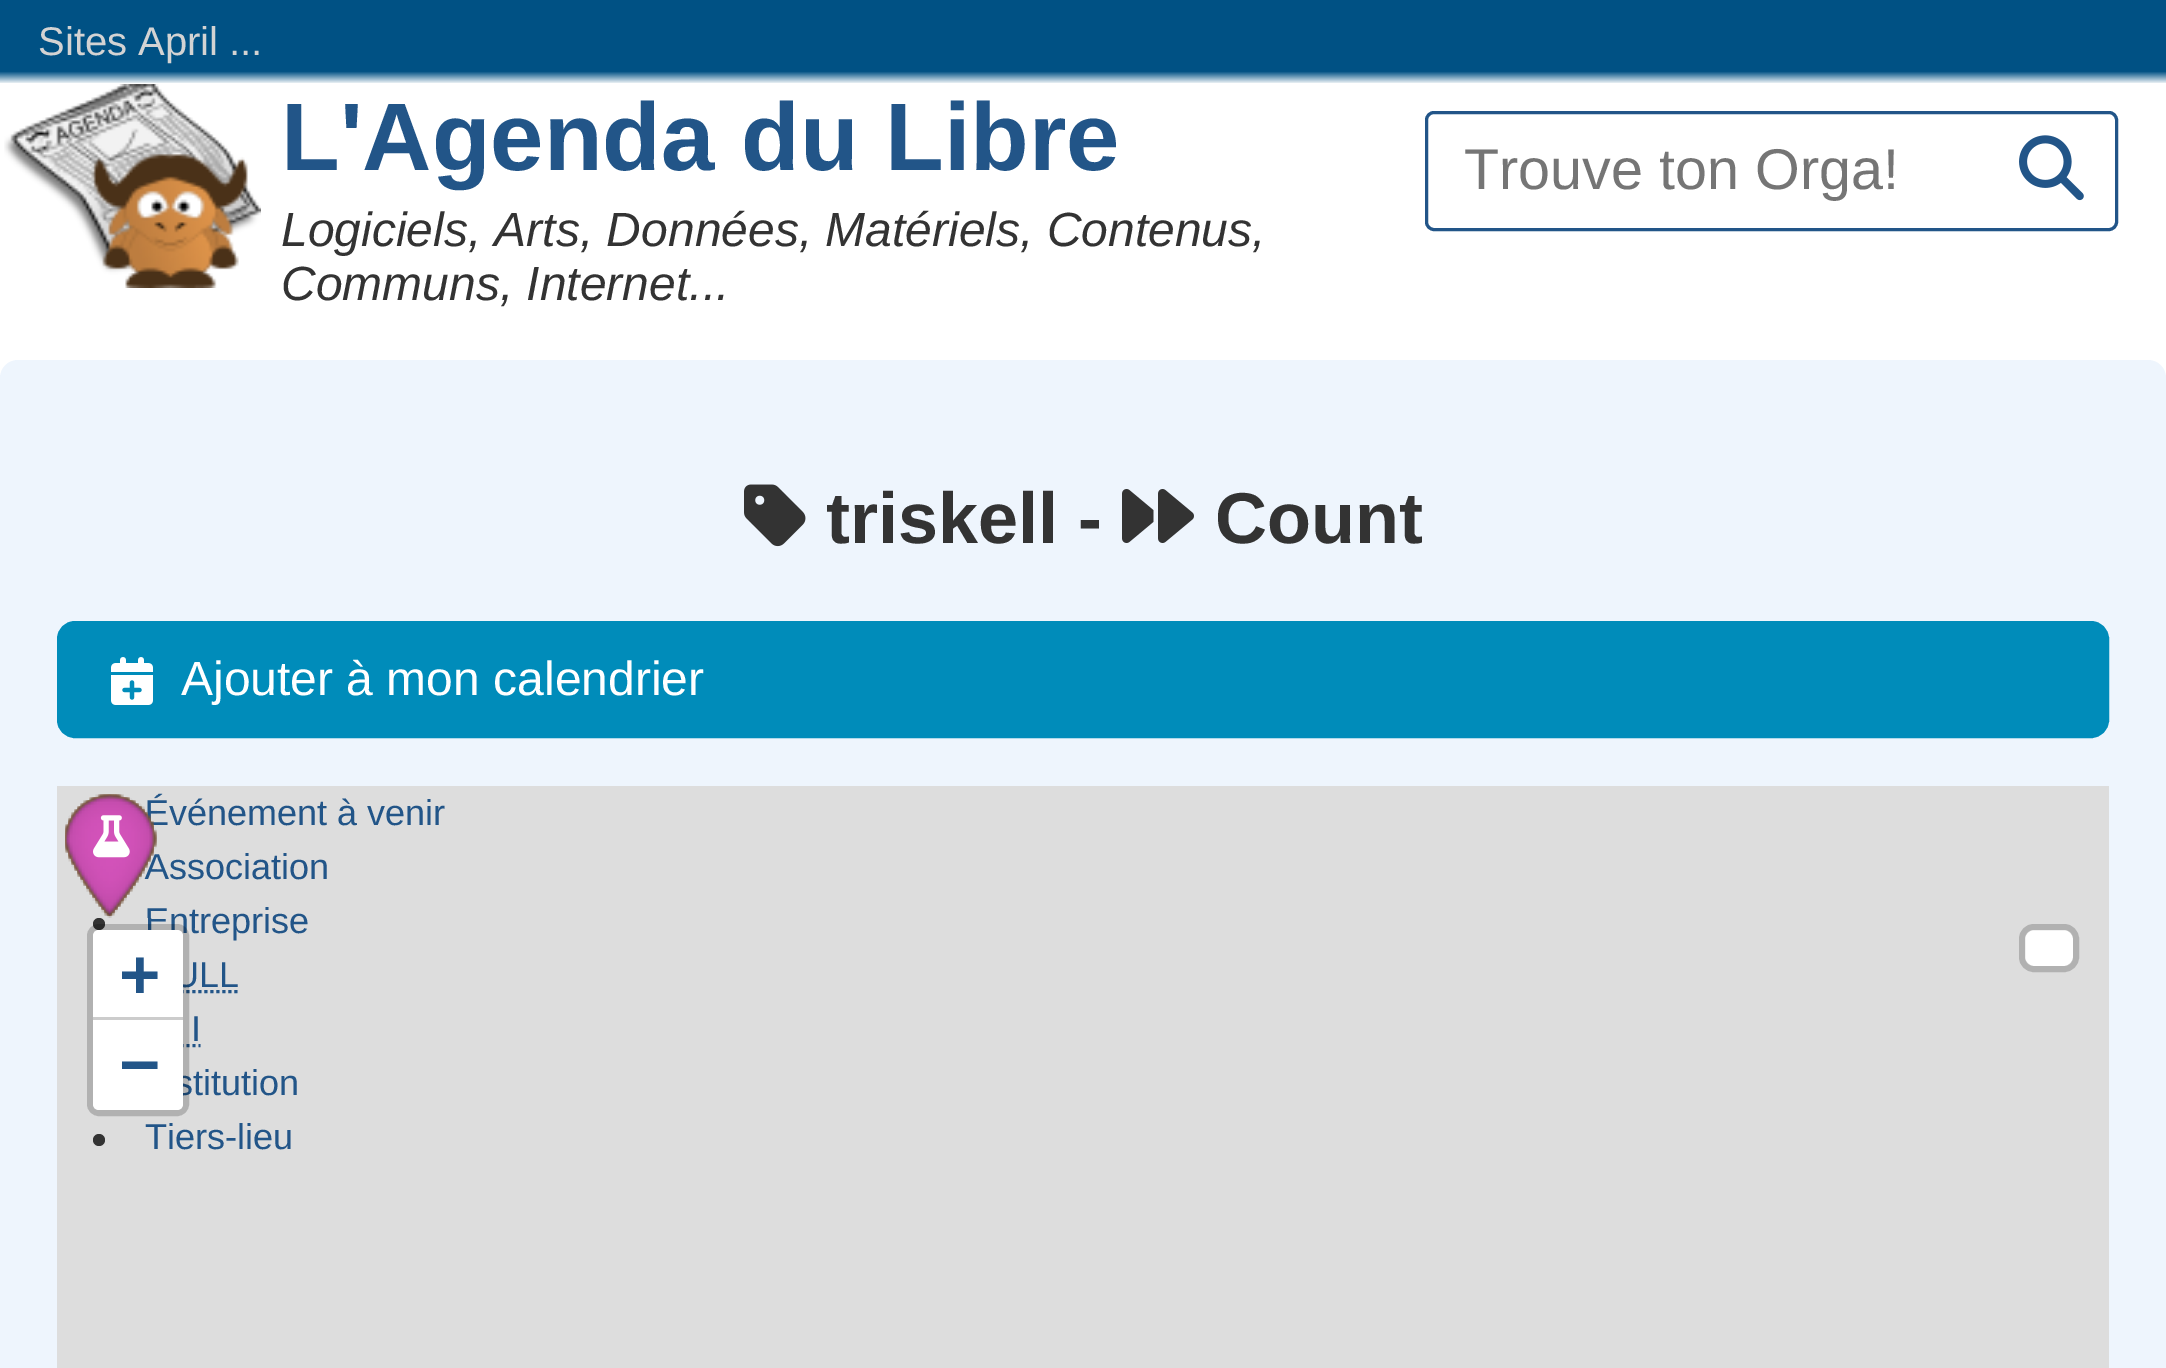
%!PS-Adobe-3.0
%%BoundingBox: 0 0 2166 1368
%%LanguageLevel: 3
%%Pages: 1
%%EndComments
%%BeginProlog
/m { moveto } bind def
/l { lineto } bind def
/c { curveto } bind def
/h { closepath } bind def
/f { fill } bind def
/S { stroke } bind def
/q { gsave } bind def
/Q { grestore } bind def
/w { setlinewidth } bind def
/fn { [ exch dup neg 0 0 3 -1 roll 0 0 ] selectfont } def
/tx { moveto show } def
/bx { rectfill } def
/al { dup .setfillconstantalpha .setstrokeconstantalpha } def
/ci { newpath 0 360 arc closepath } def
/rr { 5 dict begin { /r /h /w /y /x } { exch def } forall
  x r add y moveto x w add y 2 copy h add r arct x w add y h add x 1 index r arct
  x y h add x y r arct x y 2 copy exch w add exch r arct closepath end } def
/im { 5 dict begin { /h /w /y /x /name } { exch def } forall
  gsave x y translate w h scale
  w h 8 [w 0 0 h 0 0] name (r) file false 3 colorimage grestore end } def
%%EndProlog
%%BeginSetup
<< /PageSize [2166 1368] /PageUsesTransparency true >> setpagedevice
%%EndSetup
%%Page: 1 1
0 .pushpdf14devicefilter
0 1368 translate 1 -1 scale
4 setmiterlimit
1 setgray
0 0 2166 1368 bx
q 0 0 m 2166 0 l 2166 84 l 0 84 l h clip newpath
<< /ShadingType 2 /ColorSpace /DeviceRGB /Coords [1083 0 1083 84] /Extend [true true] /Function << /FunctionType 3 /Domain [0 1] /Functions [<< /FunctionType 2 /Domain [0 1] /C0 [0 0.318 0.518] /C1 [0 0.318 0.518] /N 1 >> << /FunctionType 2 /Domain [0 1] /C0 [0 0.318 0.518] /C1 [1 1 1] /N 1 >>] /Bounds [0.85] /Encode [0 1 0 1] >> >> shfill Q
/LiberationSans-Regular 40 fn
0.827 setgray
(Sites April ...) 38 55 tx
(image0.raw) 4 84 257 204 im
/LiberationSans-Bold 96 fn
0.133 0.333 0.533 setrgbcolor
(L'Agenda du Libre) 281 170 tx
3 w
1426.5 112.5 690 117 7.5 rr S
/LiberationSans-Regular 57.5 fn
0.459 setgray
(Trouve ton Orga!) 1464 189 tx
(image1.raw) 2019 135 65 66 im
/LiberationSans-Italic 48 fn
0.2 setgray
(Logiciels, Arts, Données, Matériels, Contenus,) 281 246 tx
(Communs, Internet...) 281 300 tx
0.933 0.961 0.992 setrgbcolor
0 360 2166 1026 18 rr f
(image2.raw) 744 484 62 63 im
/LiberationSans-Bold 72 fn
0.2 setgray
(triskell -) 826 543 tx
(image3.raw) 1122 489 72 54 im
(Count) 1215 543 tx
0 0.549 0.729 setrgbcolor
58.5 622.5 2049 114 16.5 rr q f Q
S
(image4.raw) 111 657 42 48 im
/LiberationSans-Regular 48 fn
1 setgray
(Ajouter à mon calendrier) 181 695 tx
0.867 setgray
57 786 2052 582 bx
/LiberationSans-Regular 36 fn
0.133 0.333 0.533 setrgbcolor
(Événement à venir) 145 825 tx
(Association) 145 879 tx
(Entreprise) 145 933 tx
(image5.raw) 65 794 92 124 im
(image6.raw) 65 794 92 124 im
0.2 setgray
99 924 6 ci f
(image7.raw) 65 794 92 124 im
1 setgray
2025 930 48 36 9 rr f
0.2 al
0 setgray
6 w
2022 927 54 42 12 rr S
1 al
0.133 0.333 0.533 setrgbcolor
(ULL) 173 987 tx
3 w
[3 3] 0 setdash
144.5 991.5 m 238.5 991.5 l S
144.5 1045.5 m 200.5 1045.5 l S
(stitution) 175 1095 tx
0.2 al
0 setgray
6 w
[] 0 setdash
90 927 96 186 9 rr S
1 al
1 setgray
99 930 m 177 930 l 180.5 930 183 932.5 183 936 c 183 1020 l 93 1020 l 93 936 l 93 932.5 95.5 930 99 930 c h f
0.8 setgray
93 1017 90 3 bx
/DejaVuSansMono-Bold 66 fn
0.133 0.333 0.533 setrgbcolor
(+) 120 996 tx
1 setgray
93 1020 m 183 1020 l 183 1104 l 183 1107.5 180.5 1110 177 1110 c 99 1110 l 95.5 1110 93 1107.5 93 1104 c h f
0.133 0.333 0.533 setrgbcolor
(−) 120 1086 tx
(image8.raw) 65 794 92 124 im
(image9.raw) 65 794 92 124 im
/LiberationSans-Regular 36 fn
(I) 191 1041 tx
(image10.raw) 65 794 92 124 im
0.2 setgray
99 1140 6 ci f
(image11.raw) 65 794 92 124 im
(image12.raw) 93 815 37 43 im
0.133 0.333 0.533 setrgbcolor
(Tiers-lieu) 145 1149 tx
.poppdf14devicefilter showpage
%%EOF
